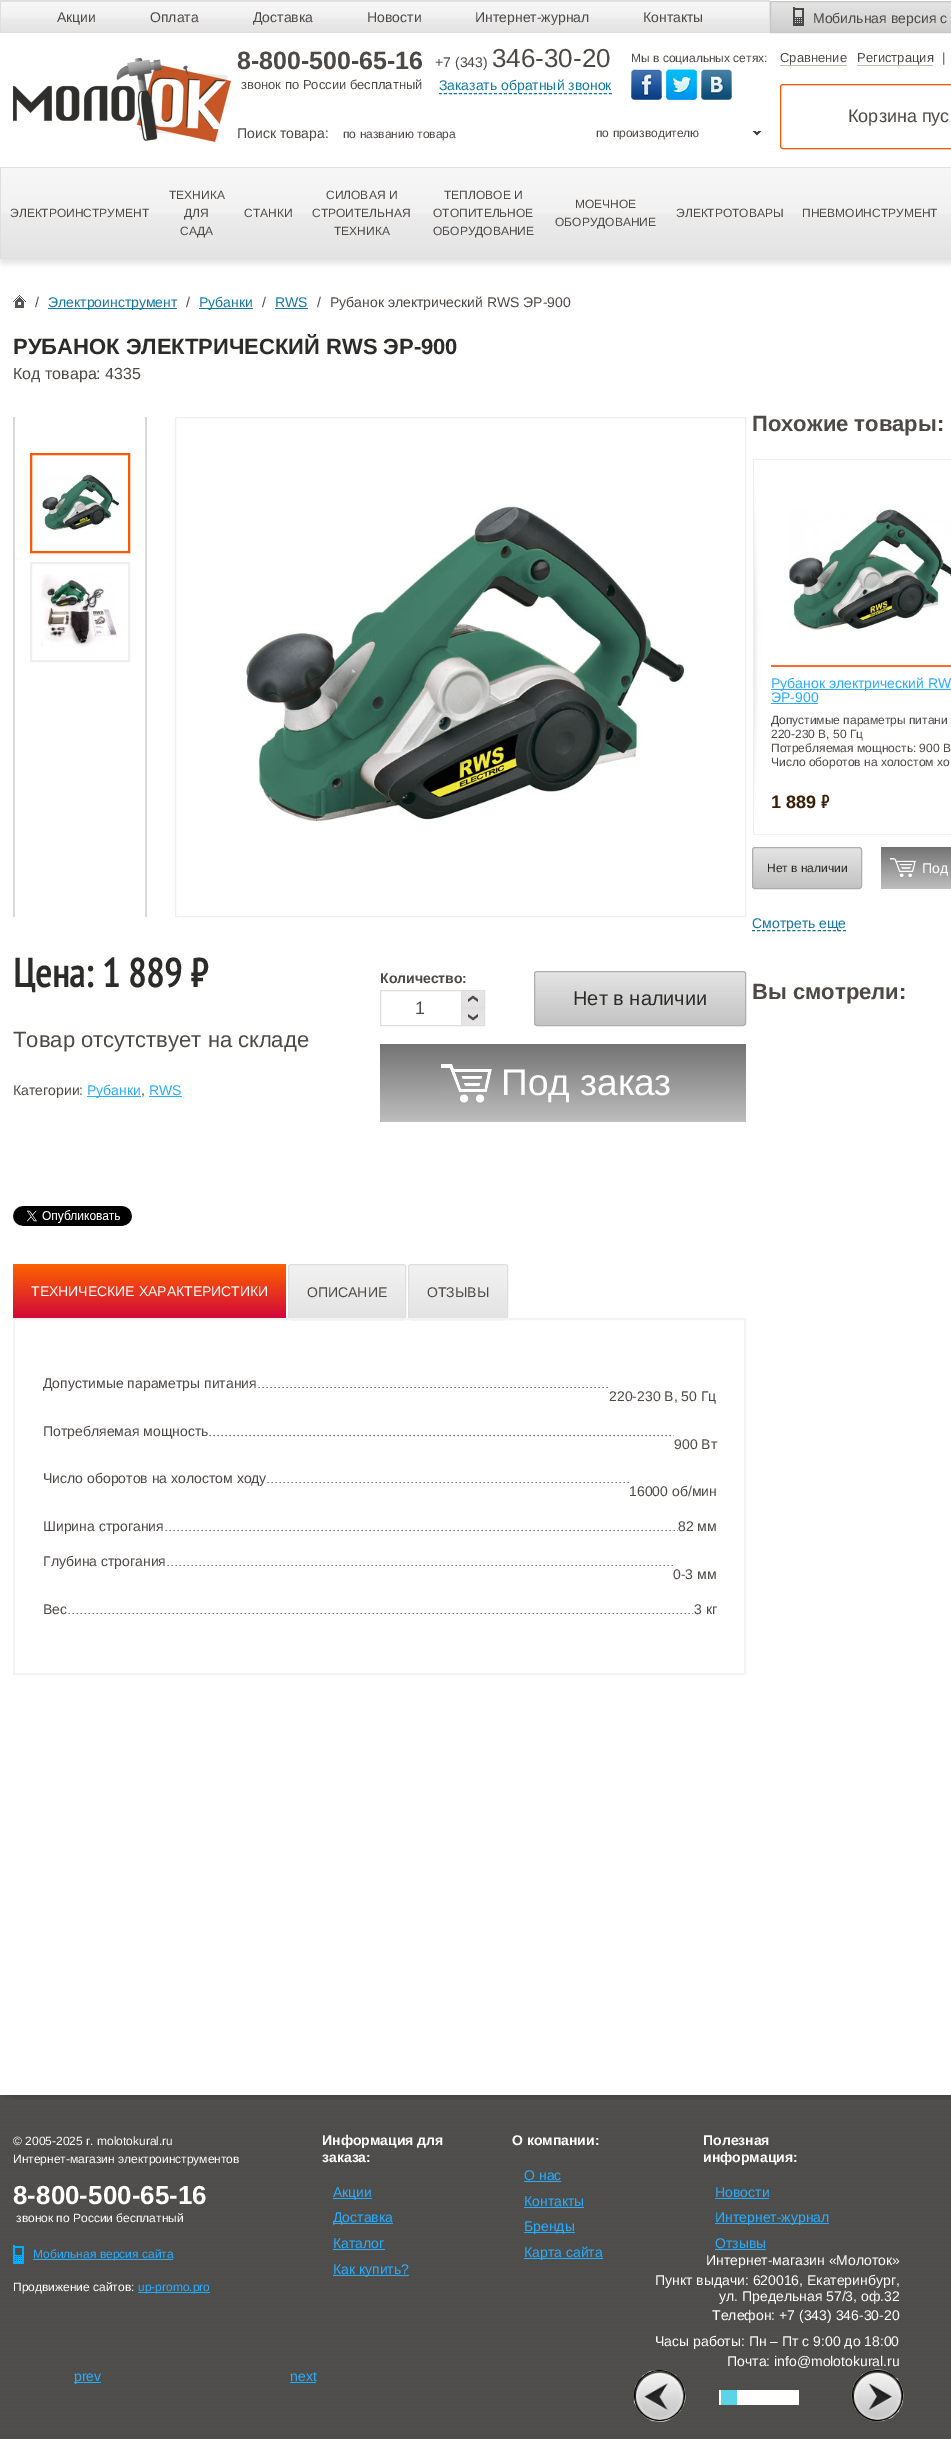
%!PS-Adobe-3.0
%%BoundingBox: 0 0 951 2439
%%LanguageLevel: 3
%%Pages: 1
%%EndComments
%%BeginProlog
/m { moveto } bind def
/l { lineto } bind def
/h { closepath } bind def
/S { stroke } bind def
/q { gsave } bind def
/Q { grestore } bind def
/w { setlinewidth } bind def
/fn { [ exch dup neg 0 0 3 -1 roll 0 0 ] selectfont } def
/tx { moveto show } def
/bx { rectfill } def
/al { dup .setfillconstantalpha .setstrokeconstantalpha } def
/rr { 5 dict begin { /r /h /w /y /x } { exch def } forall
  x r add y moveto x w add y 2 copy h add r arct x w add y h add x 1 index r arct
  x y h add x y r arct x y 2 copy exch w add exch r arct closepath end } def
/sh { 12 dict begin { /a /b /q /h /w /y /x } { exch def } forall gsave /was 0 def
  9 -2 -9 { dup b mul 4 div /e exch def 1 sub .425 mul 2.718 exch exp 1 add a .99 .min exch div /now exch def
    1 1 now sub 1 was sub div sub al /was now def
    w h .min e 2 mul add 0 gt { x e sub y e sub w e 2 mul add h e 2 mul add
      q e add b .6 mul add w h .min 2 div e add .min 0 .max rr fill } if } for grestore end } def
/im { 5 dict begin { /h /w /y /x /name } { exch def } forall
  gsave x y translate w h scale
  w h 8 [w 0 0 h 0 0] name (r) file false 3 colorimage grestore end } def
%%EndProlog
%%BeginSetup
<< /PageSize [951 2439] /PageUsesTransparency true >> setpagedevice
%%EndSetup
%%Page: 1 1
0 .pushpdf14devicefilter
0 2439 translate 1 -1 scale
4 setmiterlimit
1 setgray
0 0 951 2439 bx
q 1 1 m 770 1 l 770 2 l 1 2 l h clip newpath
<< /ShadingType 2 /ColorSpace /DeviceRGB /Coords [386 -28 386 2] /Extend [true true] /Function << /FunctionType 3 /Domain [0 1] /Functions [<< /FunctionType 2 /Domain [0 1] /C0 [0.969 0.969 0.969] /C1 [0.945 0.945 0.945] /N 1 >> << /FunctionType 2 /Domain [0 1] /C0 [0.945 0.945 0.945] /C1 [0.925 0.925 0.925] /N 1 >> << /FunctionType 2 /Domain [0 1] /C0 [0.925 0.925 0.925] /C1 [0.89 0.89 0.89] /N 1 >>] /Bounds [0.5 0.51] /Encode [0 1 0 1 0 1] >> >> shfill Q
q 1 2 m 769 2 l 769 32 l 1 32 l h clip newpath
<< /ShadingType 2 /ColorSpace /DeviceRGB /Coords [386 2 386 32] /Extend [true true] /Function << /FunctionType 3 /Domain [0 1] /Functions [<< /FunctionType 2 /Domain [0 1] /C0 [0.969 0.969 0.969] /C1 [0.945 0.945 0.945] /N 1 >> << /FunctionType 2 /Domain [0 1] /C0 [0.945 0.945 0.945] /C1 [0.925 0.925 0.925] /N 1 >> << /FunctionType 2 /Domain [0 1] /C0 [0.925 0.925 0.925] /C1 [0.89 0.89 0.89] /N 1 >>] /Bounds [0.5 0.51] /Encode [0 1 0 1 0 1] >> >> shfill Q
0.875 setgray
0 0 770 1 bx
769 0 1 33 bx
0 32 770 1 bx
0 0 1 33 bx
/LiberationSans-Regular 14 fn
0.302 0.286 0.278 setrgbcolor
(Акции) 57 22 tx
(Оплата) 150 22 tx
(Доставка) 253 22 tx
(Новости) 367 22 tx
(Интернет-журнал) 475 22 tx
(Контакты) 643 22 tx
q 771 2 m 951 2 l 951 32 l 771 32 l h clip newpath
<< /ShadingType 2 /ColorSpace /DeviceRGB /Coords [887 2 887 32] /Extend [true true] /Function << /FunctionType 2 /Domain [0 1] /C0 [0.894 0.894 0.894] /C1 [0.812 0.808 0.808] /N 1 >> >> shfill Q
0.784 setgray
770.5 1.5 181 31 rectstroke
(image0.raw) 793 7 11 19 im
0.302 0.286 0.278 setrgbcolor
(Мобильная версия с) 813 23 tx
(image1.raw) 13 58 218 84 im
/LiberationSans-Bold 25 fn
(8-800-500-65-16) 237 69 tx
/LiberationSans-Regular 13 fn
(звонок по России бесплатный) 241 89 tx
/LiberationSans-Regular 14 fn
(+7 \(343\)) 435 67 tx
/LiberationSans-Regular 26 fn
(346-30-20) 492 67 tx
/LiberationSans-Regular 14 fn
0.075 0.475 0.639 setrgbcolor
(Заказать обратный звонок) 439 90 tx
[3 2] 0 setdash
439 93.5 m 612 93.5 l S
/LiberationSans-Regular 12 fn
0.302 0.286 0.278 setrgbcolor
(Мы в социальных сетях:) 631 62 tx
(image2.raw) 631 69 31 31 im
(image3.raw) 666 69 31 31 im
(image4.raw) 701 69 31 31 im
/LiberationSans-Regular 14 fn
(Поиск товара:) 237 138 tx
/LiberationSans-Regular 12 fn
(по названию товара) 343 138 tx
(image5.raw) 752 131 10 5 im
(по производителю) 596 137 tx
0.761 0.729 0.71 setrgbcolor
780 65 67 1 bx
/LiberationSans-Regular 13 fn
0.302 0.286 0.278 setrgbcolor
(Сравнение) 780 62 tx
0.761 0.729 0.71 setrgbcolor
857 65 76 1 bx
0.302 0.286 0.278 setrgbcolor
(Регистрация) 857 62 tx
(|) 942 62 tx
0.992 0.325 0 setrgbcolor
[] 0 setdash
780.5 84.5 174 64 2.5 rr S
/LiberationSans-Regular 18 fn
0.302 0.286 0.278 setrgbcolor
(Корзина пус) 848 122 tx
0.898 setgray
0 172 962 92 3 2.5 1 sh
q 1 168 m 951 168 l 951 258 l 1 258 l h clip newpath
<< /ShadingType 2 /ColorSpace /DeviceRGB /Coords [502 168 502 258] /Extend [true true] /Function << /FunctionType 3 /Domain [0 1] /Functions [<< /FunctionType 2 /Domain [0 1] /C0 [0.969 0.969 0.969] /C1 [0.945 0.945 0.945] /N 1 >> << /FunctionType 2 /Domain [0 1] /C0 [0.945 0.945 0.945] /C1 [0.925 0.925 0.925] /N 1 >> << /FunctionType 2 /Domain [0 1] /C0 [0.925 0.925 0.925] /C1 [0.89 0.89 0.89] /N 1 >>] /Bounds [0.5 0.51] /Encode [0 1 0 1 0 1] >> >> shfill Q
0.875 setgray
0 167 951 1 bx
0 258 951 1 bx
0 167 1 92 bx
/LiberationSans-Regular 12 fn
0.302 0.286 0.278 setrgbcolor
(ЭЛЕКТРОИНСТРУМЕНТ) 10 217 tx
(ТЕХНИКА) 169 199 tx
(ДЛЯ) 184 217 tx
(САДА) 180 235 tx
(СТАНКИ) 244 217 tx
(СИЛОВАЯ И) 326 199 tx
(СТРОИТЕЛЬНАЯ) 312 217 tx
(ТЕХНИКА) 334 235 tx
(ТЕПЛОВОЕ И) 444 199 tx
(ОТОПИТЕЛЬНОЕ) 433 217 tx
(ОБОРУДОВАНИЕ) 433 235 tx
(МОЕЧНОЕ) 575 208 tx
(ОБОРУДОВАНИЕ) 555 226 tx
(ЭЛЕКТРОТОВАРЫ) 676 217 tx
(ПНЕВМОИНСТРУМЕНТ) 802 217 tx
(image6.raw) 13 295 13 13 im
/LiberationSans-Regular 14 fn
(/) 35 307 tx
0.075 0.475 0.639 setrgbcolor
48 308 129 1 bx
(Электроинструмент) 48 307 tx
0.302 0.286 0.278 setrgbcolor
(/) 186 307 tx
0.075 0.475 0.639 setrgbcolor
199 308 54 1 bx
(Рубанки) 199 307 tx
0.302 0.286 0.278 setrgbcolor
(/) 262 307 tx
0.075 0.475 0.639 setrgbcolor
(RWS) 275 307 tx
275 308 33 1 bx
0.302 0.286 0.278 setrgbcolor
(/) 317 307 tx
(Рубанок электрический RWS ЭР-900) 330 307 tx
/LiberationSans-Bold 22 fn
0.169 0.169 0.161 setrgbcolor
(РУБАНОК ЭЛЕКТРИЧЕСКИЙ RWS ЭР-900) 13 354 tx
/LiberationSans-Regular 16 fn
0.302 0.286 0.278 setrgbcolor
(Код товара: 4335) 13 379 tx
/LiberationSans-Bold 22 fn
(Похожие товары:) 752 431 tx
(image7.raw) 753 459 198 376 im
(image8.raw) 788 509 163 122 im
0.984 0.408 0.196 setrgbcolor
771 665 180 2 bx
0.157 0.675 1 setrgbcolor
771 689 180 1 bx
/LiberationSans-Regular 14 fn
(Рубанок электрический RW) 771 688 tx
(ЭР-900) 771 702 tx
771 703 47 1 bx
/LiberationSans-Regular 12 fn
0.302 0.286 0.278 setrgbcolor
(Допустимые параметры питани) 771 724 tx
(220-230 В, 50 Гц) 771 738 tx
(Потребляемая мощность: 900 В) 771 752 tx
(Число оборотов на холостом хо) 771 766 tx
/LiberationSans-Bold 18 fn
0.235 0.118 0.031 setrgbcolor
(1 889) 771 808 tx
/PTSansNarrow-Bold 18 fn
(₷) 821 808 tx
q
752 847 110 42 3 rr clip newpath
q 752 848 m 862 848 l 862 888 l 752 888 l h clip newpath
<< /ShadingType 2 /ColorSpace /DeviceRGB /Coords [807 848 807 888] /Extend [true true] /Function << /FunctionType 2 /Domain [0 1] /C0 [0.894 0.894 0.894] /C1 [0.769 0.765 0.765] /N 1 >> >> shfill Q
Q
0.686 0.682 0.682 setrgbcolor
752.5 847.5 109 41 2.5 rr S
/LiberationSans-Regular 12 fn
0.169 0.169 0.161 setrgbcolor
(Нет в наличии) 767 872 tx
q 881 847 m 951 847 l 951 889 l 881 889 l h clip newpath
<< /ShadingType 2 /ColorSpace /DeviceRGB /Coords [936 847 936 889] /Extend [true true] /Function << /FunctionType 2 /Domain [0 1] /C0 [0.451 0.451 0.451] /C1 [0.745 0.745 0.745] /N 1 >> >> shfill Q
(image9.raw) 890 858 26 19 im
/LiberationSans-Regular 14 fn
1 setgray
(Под) 922 873 tx
0.075 0.475 0.639 setrgbcolor
[3 2.06] 0 setdash
752 930.5 m 846 930.5 l S
(Смотреть еще) 752 928 tx
/LiberationSans-Bold 22 fn
0.302 0.286 0.278 setrgbcolor
(Вы смотрели:) 752 999 tx
0.851 setgray
145 417 2 500 bx
13 417 2 500 bx
0.996 0.345 0.027 setrgbcolor
2 w
[] 0 setdash
31 454 98 98 rectstroke
(image10.raw) 42 474 77 56 im
0.937 setgray
31 563 98 98 rectstroke
(image11.raw) 41 574 76 73 im
1 w
175.5 417.5 570 499 rectstroke
(image12.raw) 244 505 440 318 im
/PTSansNarrow-Bold 40 fn
0.169 0.169 0.161 setrgbcolor
(Цена: 1 889 ₷) 13 987 tx
/LiberationSans-Regular 22 fn
0.302 0.286 0.278 setrgbcolor
(Товар отсутствует на складе) 13 1047 tx
/LiberationSans-Regular 14 fn
(Категории:) 13 1095 tx
0.157 0.675 1 setrgbcolor
87 1096 54 1 bx
(Рубанки) 87 1095 tx
0.302 0.286 0.278 setrgbcolor
(,) 141 1095 tx
0.157 0.675 1 setrgbcolor
(RWS) 149 1095 tx
149 1096 33 1 bx
/LiberationSans-Bold 14 fn
0.302 0.286 0.278 setrgbcolor
(Количество:) 380 983 tx
0.871 setgray
380.5 990.5 104 35 rectstroke
(image13.raw) 462 1009 22 16 im
461 1007 23 2 bx
461 991 1 34 bx
/LiberationSans-Regular 18 fn
0.302 0.286 0.278 setrgbcolor
(1) 415 1014 tx
(image14.raw) 462 991 22 16 im
q
534 971 212 55 3 rr clip newpath
q 534 972 m 746 972 l 746 1025 l 534 1025 l h clip newpath
<< /ShadingType 2 /ColorSpace /DeviceRGB /Coords [640 972 640 1025] /Extend [true true] /Function << /FunctionType 2 /Domain [0 1] /C0 [0.894 0.894 0.894] /C1 [0.769 0.765 0.765] /N 1 >> >> shfill Q
Q
0.686 0.682 0.682 setrgbcolor
534.5 971.5 211 54 2.5 rr S
/LiberationSans-Regular 20 fn
0.169 0.169 0.161 setrgbcolor
(Нет в наличии) 573 1005 tx
q 380 1044 m 746 1044 l 746 1122 l 380 1122 l h clip newpath
<< /ShadingType 2 /ColorSpace /DeviceRGB /Coords [563 1044 563 1122] /Extend [true true] /Function << /FunctionType 2 /Domain [0 1] /C0 [0.451 0.451 0.451] /C1 [0.745 0.745 0.745] /N 1 >> >> shfill Q
(image15.raw) 441 1064 51 39 im
/LiberationSans-Regular 37 fn
1 setgray
(Под заказ) 501 1095 tx
(image16.raw) 13 1206 119 20 im
q 13 1264 273 54 3 rr clip newpath
<< /ShadingType 2 /ColorSpace /DeviceRGB /Coords [150 1264 150 1318] /Extend [true true] /Function << /FunctionType 2 /Domain [0 1] /C0 [0.992 0.388 0] /C1 [0.827 0.031 0.227] /N 1 >> >> shfill Q
/LiberationSans-Regular 14 fn
(ТЕХНИЧЕСКИЕ ХАРАКТЕРИСТИКИ) 31 1296 tx
q
288 1264 118 56 3 rr clip newpath
q 288 1265 m 406 1265 l 406 1318 l 288 1318 l h clip newpath
<< /ShadingType 2 /ColorSpace /DeviceRGB /Coords [347 1265 347 1319] /Extend [true true] /Function << /FunctionType 2 /Domain [0 1] /C0 [0.949 0.949 0.949] /C1 [0.89 0.89 0.89] /N 1 >> >> shfill Q
Q
0.871 setgray
288.5 1264.5 117 55 2.5 rr S
0.302 0.286 0.278 setrgbcolor
(ОПИСАНИЕ) 307 1297 tx
q
408 1264 100 56 3 rr clip newpath
q 408 1265 m 508 1265 l 508 1318 l 408 1318 l h clip newpath
<< /ShadingType 2 /ColorSpace /DeviceRGB /Coords [458 1265 458 1319] /Extend [true true] /Function << /FunctionType 2 /Domain [0 1] /C0 [0.949 0.949 0.949] /C1 [0.89 0.89 0.89] /N 1 >> >> shfill Q
Q
0.871 setgray
408.5 1264.5 99 55 2.5 rr S
0.302 0.286 0.278 setrgbcolor
(ОТЗЫВЫ) 427 1297 tx
0.953 setgray
2 w
14 1319 731 355 rectstroke
0.302 0.286 0.278 setrgbcolor
(Допустимые параметры питания) 43 1388 tx
(image17.raw) 258 1387 350 1 im
(220-230 В, 50 Гц) 609 1401 tx
(Потребляемая мощность) 43 1436 tx
(image18.raw) 209 1435 465 1 im
(900 Вт) 674 1449 tx
(Число оборотов на холостом ходу) 43 1483 tx
(image19.raw) 267 1482 362 1 im
(16000 об/мин) 629 1496 tx
(Ширина строгания) 43 1531 tx
(image20.raw) 165 1530 513 1 im
(82 мм) 678 1531 tx
(Глубина строгания) 43 1566 tx
(image21.raw) 167 1565 506 1 im
(0-3 мм) 673 1579 tx
(Вес) 43 1614 tx
(image22.raw) 68 1613 625 1 im
(3 кг) 694 1614 tx
0.31 setgray
0 2095 951 344 bx
(image23.raw) 1 2095 950 5 im
(image24.raw) 0 2105 951 333 im
/LiberationSans-Regular 12 fn
1 setgray
(© 2005-2025 г. molotokural.ru) 13 2145 tx
(Интернет-магазин электроинструментов) 13 2163 tx
/LiberationSans-Bold 26 fn
(8-800-500-65-16) 13 2204 tx
/LiberationSans-Regular 12 fn
(звонок по России бесплатный) 16 2222 tx
(image25.raw) 13 2245 11 19 im
0.157 0.675 1 setrgbcolor
33 2259 140 1 bx
(Мобильная версия сайта) 33 2258 tx
1 setgray
(Продвижение сайтов:) 13 2291 tx
0.157 0.675 1 setrgbcolor
138 2292 72 1 bx
(up-promo.pro) 138 2291 tx
/LiberationSans-Bold 14 fn
1 setgray
(Информация для) 322 2145 tx
(заказа:) 322 2162 tx
0.157 0.675 1 setrgbcolor
333 2198 39 1 bx
/LiberationSans-Regular 14 fn
(Акции) 333 2197 tx
333 2223 60 1 bx
(Доставка) 333 2222 tx
(Каталог) 333 2248 tx
333 2249 52 1 bx
333 2275 76 1 bx
(Как купить?) 333 2274 tx
/LiberationSans-Bold 14 fn
1 setgray
(О компании:) 512 2145 tx
/LiberationSans-Regular 14 fn
0.157 0.675 1 setrgbcolor
(О нас) 524 2180 tx
524 2181 37 1 bx
(Контакты) 524 2206 tx
524 2207 60 1 bx
524 2232 51 1 bx
(Бренды) 524 2231 tx
524 2258 79 1 bx
(Карта сайта) 524 2257 tx
/LiberationSans-Bold 14 fn
1 setgray
(Полезная) 703 2145 tx
(информация:) 703 2162 tx
/LiberationSans-Regular 14 fn
0.157 0.675 1 setrgbcolor
(Новости) 715 2197 tx
715 2198 54 1 bx
715 2223 114 1 bx
(Интернет-журнал) 715 2222 tx
(Отзывы) 715 2248 tx
715 2249 51 1 bx
1 setgray
(Интернет-магазин «Молоток») 706 2265 tx
(Пункт выдачи: 620016, Екатеринбург,) 655 2285 tx
(ул. Предельная 57/3, оф.32) 719 2301 tx
(Телефон: +7 \(343\) 346-30-20) 712 2320 tx
(Часы работы: Пн – Пт с 9:00 до 18:00) 655 2346 tx
(Почта: info@molotokural.ru) 727 2366 tx
(image26.raw) 633 2370 53 52 im
0.157 0.675 1 setrgbcolor
74 2382 27 1 bx
(prev) 74 2381 tx
(image27.raw) 851 2369 53 53 im
(next) 290 2381 tx
290 2382 26 1 bx
1 setgray
719 2390 80 15 bx
0.361 0.831 0.91 setrgbcolor
721 2390 16 15 bx
.poppdf14devicefilter showpage
%%EOF
